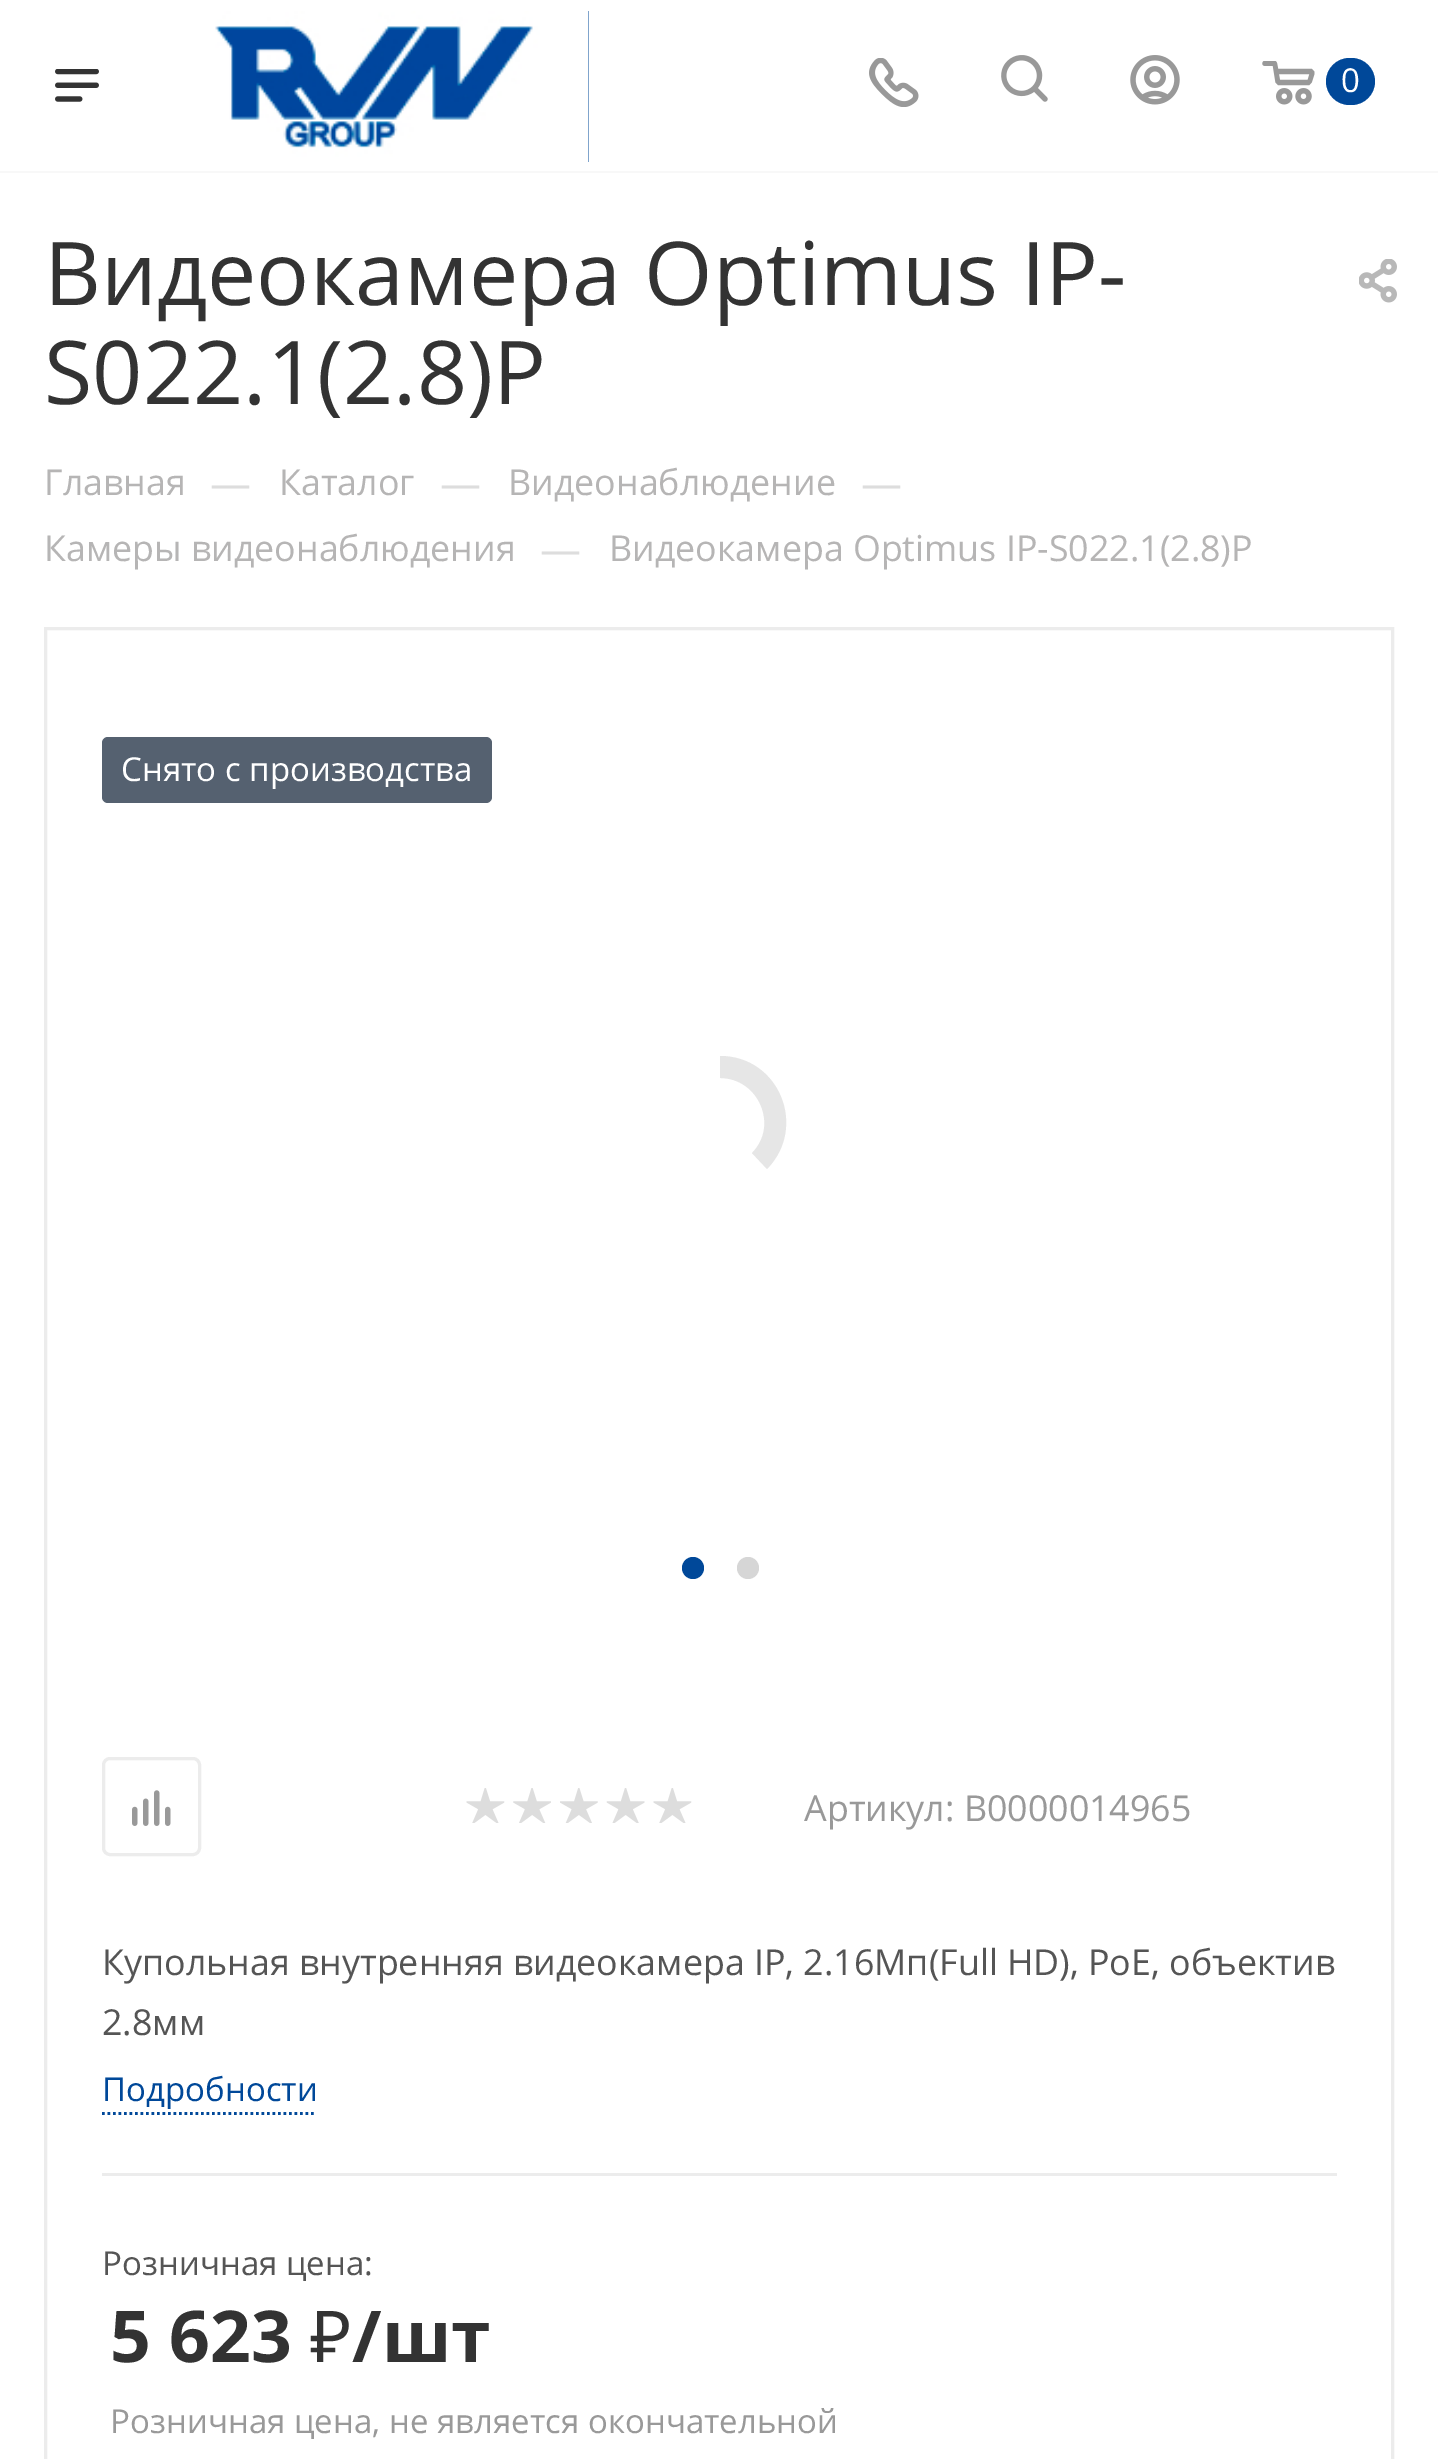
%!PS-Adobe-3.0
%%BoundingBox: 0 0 1438 2459
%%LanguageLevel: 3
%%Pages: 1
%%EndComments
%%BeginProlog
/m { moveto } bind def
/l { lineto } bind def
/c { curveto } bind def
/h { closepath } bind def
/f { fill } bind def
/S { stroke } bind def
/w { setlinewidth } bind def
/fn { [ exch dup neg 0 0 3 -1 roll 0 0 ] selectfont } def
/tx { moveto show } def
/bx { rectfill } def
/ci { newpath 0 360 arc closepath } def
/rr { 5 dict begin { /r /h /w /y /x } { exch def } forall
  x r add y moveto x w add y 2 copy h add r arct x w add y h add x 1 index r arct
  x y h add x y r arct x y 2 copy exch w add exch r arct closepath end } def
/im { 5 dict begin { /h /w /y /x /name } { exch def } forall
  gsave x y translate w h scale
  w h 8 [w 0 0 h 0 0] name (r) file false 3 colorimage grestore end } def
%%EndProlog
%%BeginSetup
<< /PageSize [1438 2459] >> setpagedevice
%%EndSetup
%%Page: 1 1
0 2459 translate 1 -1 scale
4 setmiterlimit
1 setgray
0 0 1438 2459 bx
0.973 setgray
0 171 1438 2 bx
(image0.raw) 55 69 44 33 im
0 0.282 0.6 setrgbcolor
588 11 1 151 bx
(image1.raw) 160 11 429 151 im
(image2.raw) 869 58 50 49 im
(image3.raw) 1001 55 47 47 im
(image4.raw) 1130 55 50 50 im
(image5.raw) 1262 61 53 44 im
1326 58 49 47 23.5 rr f
/OpenSans-Regular 33 fn
1 setgray
(0) 1341 92 tx
/OpenSans-Regular 88 fn
0.2 setgray
(Видеокамера Optimus IP-) 44 305 tx
(S022.1\(2.8\)P) 44 404 tx
(image6.raw) 1359 259 38 44 im
/OpenSans-Regular 35.75 fn
0.714 0.71 0.71 setrgbcolor
(Главная) 44 495 tx
/OpenSans-Regular 41 fn
0.867 setgray
(—) 210 498 tx
/OpenSans-Regular 35.75 fn
0.714 0.71 0.71 setrgbcolor
(Каталог) 279 495 tx
/OpenSans-Regular 41 fn
0.867 setgray
(—) 440 498 tx
/OpenSans-Regular 35.75 fn
0.714 0.71 0.71 setrgbcolor
(Видеонаблюдение) 508 495 tx
/OpenSans-Regular 41 fn
0.867 setgray
(—) 861 498 tx
/OpenSans-Regular 35.75 fn
0.714 0.71 0.71 setrgbcolor
(Камеры видеонаблюдения) 44 561 tx
/OpenSans-Regular 41 fn
0.867 setgray
(—) 540 564 tx
/OpenSans-Regular 35.75 fn
0.714 0.71 0.71 setrgbcolor
(Видеокамера Optimus IP-S022.1\(2.8\)P) 609 561 tx
0.925 setgray
3 w
45.5 628.5 1347 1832 rectstroke
0.333 0.38 0.439 setrgbcolor
102 737 390 66 6 rr f
/OpenSans-Regular 33 fn
1 setgray
(Снято с производства) 121 781 tx
0.902 setgray
720 1056 m 779 1056 808 1127 767 1169 c 752 1153 l 779 1126 759 1078 720 1078 c h f
0 0.282 0.6 setrgbcolor
693 1568 11 ci f
0.839 setgray
748 1568 11 ci f
0.925 setgray
103.5 1758.5 96 96 6.5 rr S
(image7.raw) 132 1790 39 36 im
(image8.raw) 466 1788 39 35 im
(image9.raw) 513 1788 38 35 im
(image10.raw) 560 1788 38 35 im
(image11.raw) 606 1788 39 35 im
(image8.raw) 653 1788 39 35 im
/OpenSans-Regular 35.75 fn
0.6 setgray
(Артикул: В0000014965) 804 1821 tx
0.925 setgray
102 2173 1235 3 bx
0.333 setgray
(Купольная внутренняя видеокамера IP, 2.16Мп\(Full HD\), PoE, объектив) 102 1975 tx
(2.8мм) 102 2035 tx
/OpenSans-Regular 33 fn
0 0.282 0.6 setrgbcolor
(Подробности) 102 2101 tx
2.8 w
[2.75 2.75] 0 setdash
102 2113.5 m 316 2113.5 l S
0.333 setgray
(Розничная цена:) 102 2275 tx
/OpenSans-Bold 71.5 fn
0.2 setgray
(5 623) 110 2362 tx
/NotoSans-Regular 71.5 fn
(₽) 310 2362 tx
/OpenSans-Bold 71.5 fn
(/шт) 352 2362 tx
/OpenSans-Regular 33 fn
0.6 setgray
(Розничная цена, не является окончательной) 110 2433 tx
showpage
%%EOF
